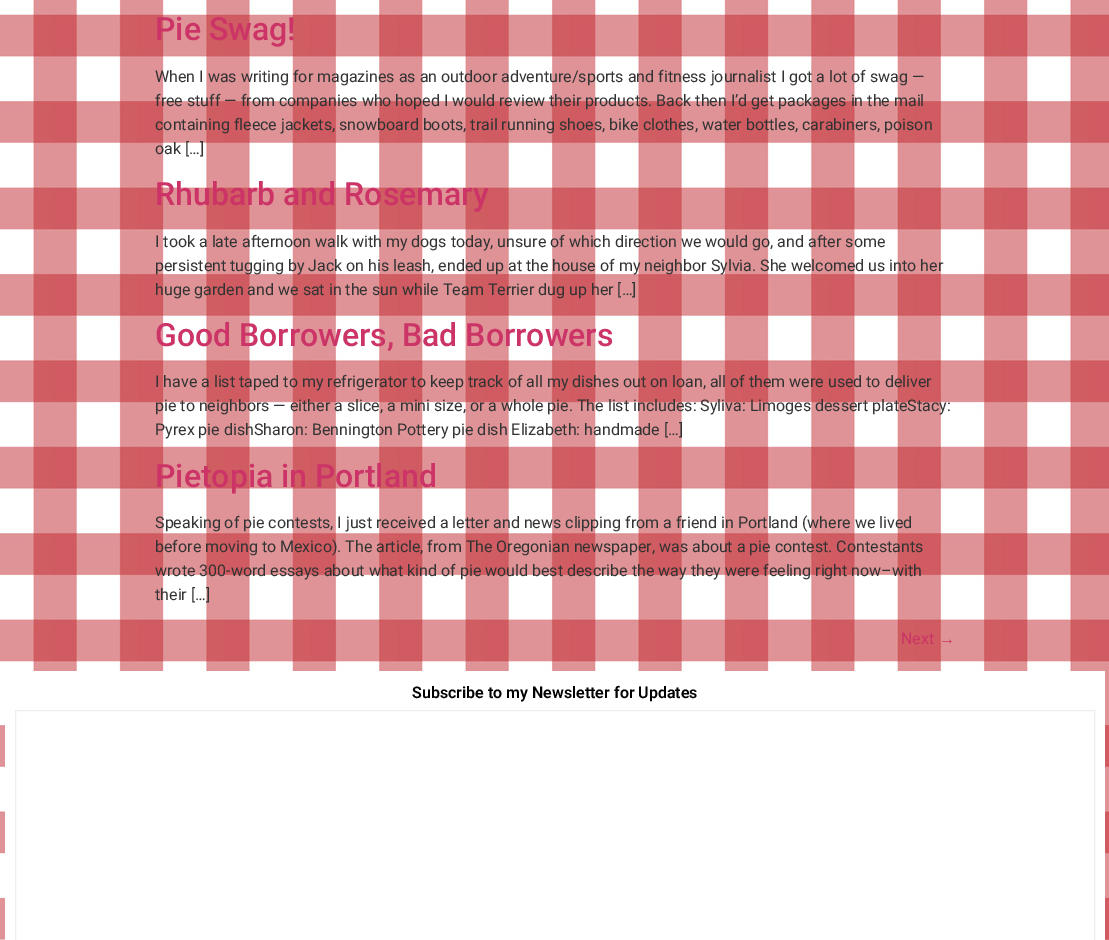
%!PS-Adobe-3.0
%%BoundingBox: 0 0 1109 940
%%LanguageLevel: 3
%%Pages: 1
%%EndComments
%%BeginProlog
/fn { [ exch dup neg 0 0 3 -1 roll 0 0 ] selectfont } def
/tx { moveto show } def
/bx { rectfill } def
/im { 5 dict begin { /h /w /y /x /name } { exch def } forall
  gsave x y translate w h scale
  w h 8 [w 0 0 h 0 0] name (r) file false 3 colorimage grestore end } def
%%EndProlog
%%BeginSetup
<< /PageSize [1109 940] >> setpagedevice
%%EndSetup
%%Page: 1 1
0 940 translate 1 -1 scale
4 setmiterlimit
1 setgray
0 0 1109 940 bx
(image0.raw) 0 0 1109 940 im
/Roboto-Medium 32 fn
0.8 0.2 0.4 setrgbcolor
(Pie Swag!) 155 40 tx
/Roboto-Regular 16 fn
0.2 setgray
(When I was writing for magazines as an outdoor adventure/sports and fitness journalist I got a lot of swag —) 155 82 tx
(free stuff — from companies who hoped I would review their products. Back then I’d get packages in the mail) 155 106 tx
(containing fleece jackets, snowboard boots, trail running shoes, bike clothes, water bottles, carabiners, poison) 155 130 tx
(oak […]) 155 154 tx
/Roboto-Medium 32 fn
0.8 0.2 0.4 setrgbcolor
(Rhubarb and Rosemary) 155 205 tx
/Roboto-Regular 16 fn
0.2 setgray
(I took a late afternoon walk with my dogs today, unsure of which direction we would go, and after some) 155 247 tx
(persistent tugging by Jack on his leash, ended up at the house of my neighbor Sylvia. She welcomed us into her) 155 271 tx
(huge garden and we sat in the sun while Team Terrier dug up her […]) 155 295 tx
/Roboto-Medium 32 fn
0.8 0.2 0.4 setrgbcolor
(Good Borrowers, Bad Borrowers) 155 346 tx
/Roboto-Regular 16 fn
0.2 setgray
(I have a list taped to my refrigerator to keep track of all my dishes out on loan, all of them were used to deliver) 155 387 tx
(pie to neighbors — either a slice, a mini size, or a whole pie. The list includes: Syliva: Limoges dessert plateStacy:) 155 411 tx
(Pyrex pie dishSharon: Bennington Pottery pie dish Elizabeth: handmade […]) 155 435 tx
/Roboto-Medium 32 fn
0.8 0.2 0.4 setrgbcolor
(Pietopia in Portland) 155 487 tx
/Roboto-Regular 16 fn
0.2 setgray
(Speaking of pie contests, I just received a letter and news clipping from a friend in Portland \(where we lived) 155 528 tx
(before moving to Mexico\). The article, from The Oregonian newspaper, was about a pie contest. Contestants) 155 552 tx
(wrote 300-word essays about what kind of pie would best describe the way they were feeling right now–with) 155 576 tx
(their […]) 155 600 tx
0.8 0.2 0.4 setrgbcolor
(Next) 901 644 tx
/LiberationSans-Regular 16 fn
(→) 939 644 tx
1 setgray
5 671 1100 269 bx
/Roboto-SemiBold 16 fn
0 setgray
(Subscribe to my Newsletter for Updates) 412 698 tx
0.933 setgray
15.5 710.5 1079 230 rectstroke
showpage
%%EOF
